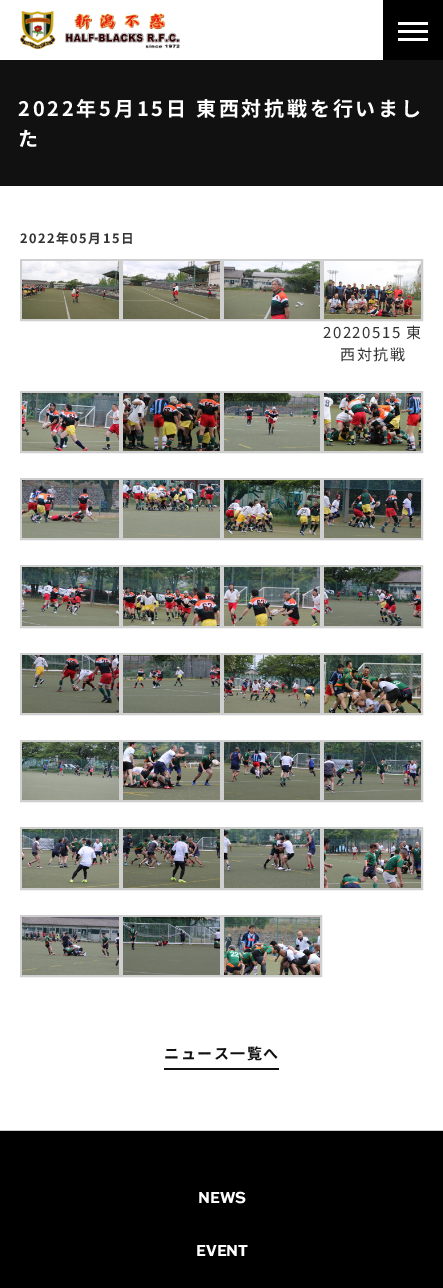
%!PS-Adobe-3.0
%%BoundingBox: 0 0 443 1288
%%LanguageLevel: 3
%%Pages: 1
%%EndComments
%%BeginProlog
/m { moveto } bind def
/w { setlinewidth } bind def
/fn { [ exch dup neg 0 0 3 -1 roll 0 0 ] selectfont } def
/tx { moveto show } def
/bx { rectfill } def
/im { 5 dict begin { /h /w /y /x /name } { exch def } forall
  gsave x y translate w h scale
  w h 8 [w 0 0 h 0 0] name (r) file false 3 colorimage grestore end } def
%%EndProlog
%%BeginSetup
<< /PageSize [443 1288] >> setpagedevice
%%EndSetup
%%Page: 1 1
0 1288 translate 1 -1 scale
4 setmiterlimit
1 setgray
0 0 443 1288 bx
(image0.raw) 20 11 160 38 im
0 setgray
383 0 60 60 bx
1 setgray
398 38 30 3 bx
398 22 30 3 bx
398 30 30 3 bx
0.067 setgray
0 60 443 126 bx
/NotoSansCJKJP-Bold 20 fn
1 setgray
18 116 m 2.8 0 (2022年5月15日 東西対抗戦を行いまし) ashow
18 146 m 2.8 0 (た) ashow
/NotoSansCJKJP-Bold 12.75 fn
0.2 setgray
20 243 m 1.5 0 (2022年05月15日) ashow
0.812 setgray
2 w
21 260 99 60 rectstroke
(image1.raw) 22 261 97 58 im
122 260 99 60 rectstroke
(image2.raw) 123 261 97 58 im
223 260 98 60 rectstroke
(image3.raw) 224 261 96 58 im
323 260 99 60 rectstroke
(image4.raw) 324 261 97 58 im
/NotoSansCJKJP-Regular 15 fn
0.2 setgray
323 338 m 1.5 0 (20220515 東) ashow
340 360 m 1.5 0 (西対抗戦) ashow
0.812 setgray
21 392 99 60 rectstroke
(image5.raw) 22 393 97 58 im
122 392 99 60 rectstroke
(image6.raw) 123 393 97 58 im
223 392 98 60 rectstroke
(image7.raw) 224 393 96 58 im
323 392 99 60 rectstroke
(image8.raw) 324 393 97 58 im
21 479 99 60 rectstroke
(image9.raw) 22 480 97 58 im
122 479 99 60 rectstroke
(image10.raw) 123 480 97 58 im
223 479 98 60 rectstroke
(image11.raw) 224 480 96 58 im
323 479 99 60 rectstroke
(image12.raw) 324 480 97 58 im
21 566 99 61 rectstroke
(image13.raw) 22 567 97 59 im
122 566 99 61 rectstroke
(image14.raw) 123 567 97 59 im
223 566 98 61 rectstroke
(image15.raw) 224 567 96 59 im
323 566 99 61 rectstroke
(image16.raw) 324 567 97 59 im
21 654 99 60 rectstroke
(image17.raw) 22 655 97 58 im
122 654 99 60 rectstroke
(image18.raw) 123 655 97 58 im
223 654 98 60 rectstroke
(image19.raw) 224 655 96 58 im
323 654 99 60 rectstroke
(image20.raw) 324 655 97 58 im
21 741 99 60 rectstroke
(image21.raw) 22 742 97 58 im
122 741 99 60 rectstroke
(image22.raw) 123 742 97 58 im
223 741 98 60 rectstroke
(image23.raw) 224 742 96 58 im
323 741 99 60 rectstroke
(image24.raw) 324 742 97 58 im
21 828 99 61 rectstroke
(image25.raw) 22 829 97 59 im
122 828 99 61 rectstroke
(image26.raw) 123 829 97 59 im
223 828 98 61 rectstroke
(image27.raw) 224 829 96 59 im
323 828 99 61 rectstroke
(image28.raw) 324 829 97 59 im
21 916 99 60 rectstroke
(image29.raw) 22 917 97 58 im
122 916 99 60 rectstroke
(image30.raw) 123 917 97 58 im
223 916 98 60 rectstroke
(image31.raw) 224 917 96 58 im
0.067 setgray
164 1068 115 2 bx
/NotoSansCJKJP-Bold 15 fn
164 1059 m 1.5 0 (ニュース一覧へ) ashow
0.8 setgray
0 1130 443 1 bx
0 setgray
0 1131 443 157 bx
/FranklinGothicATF-Bold 15.5 fn
1 setgray
(NEWS) 198 1203 tx
(EVENT) 196 1256 tx
showpage
%%EOF
